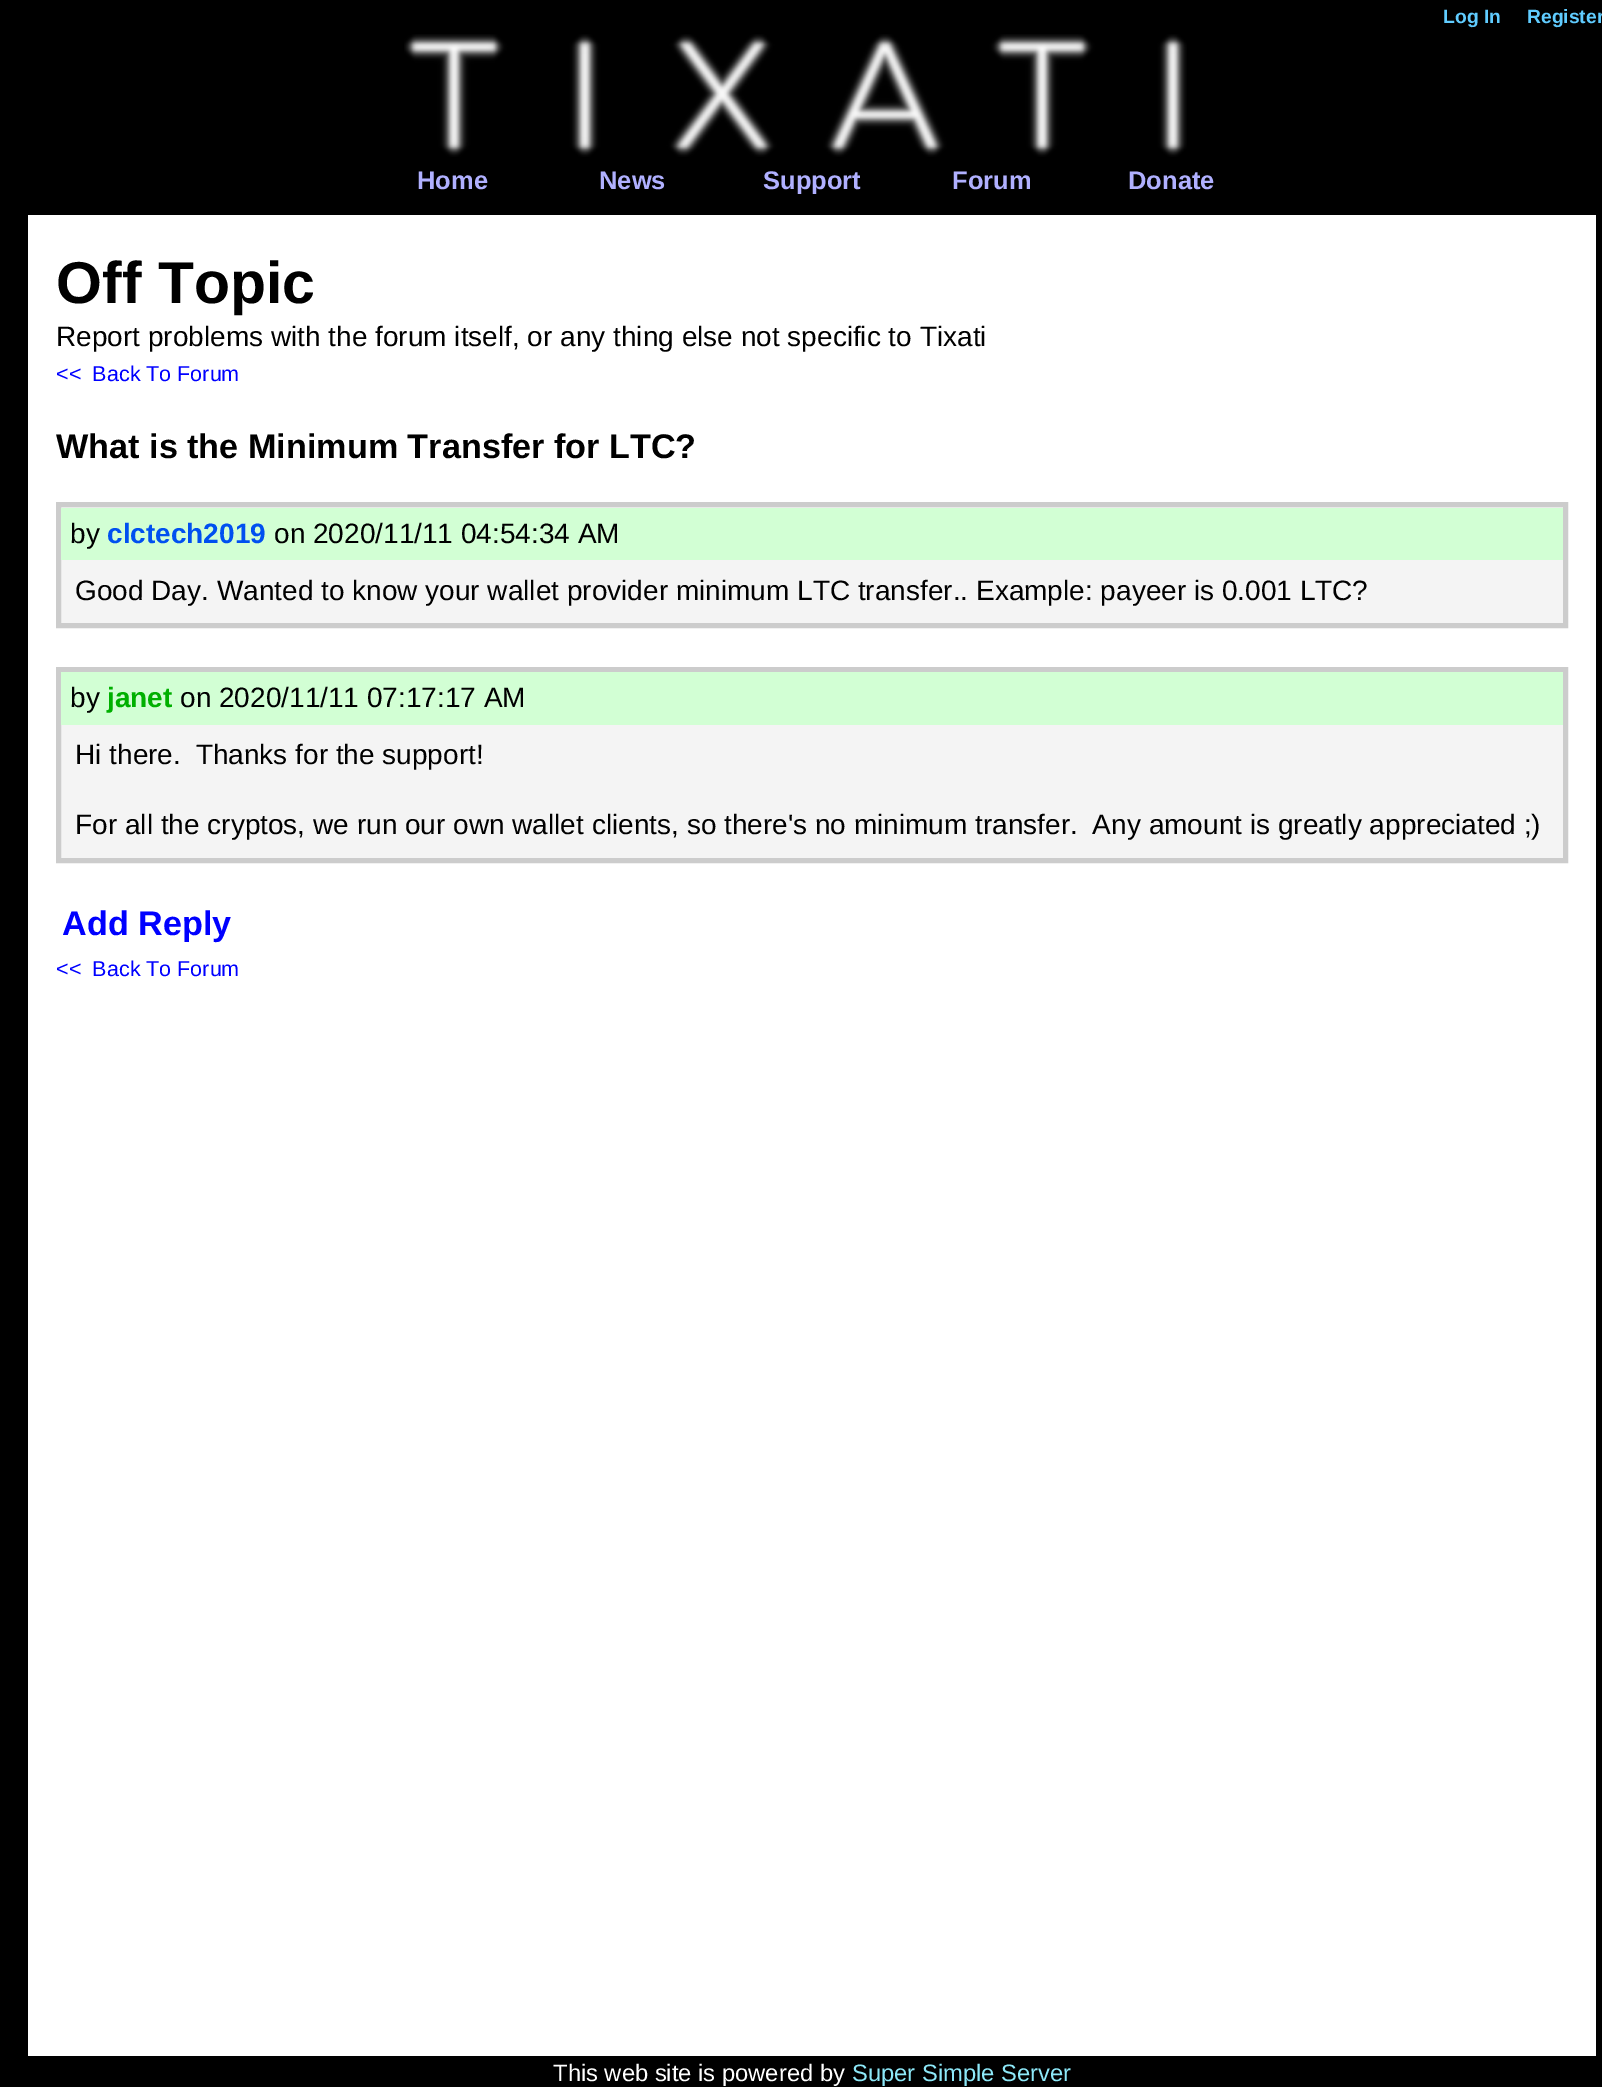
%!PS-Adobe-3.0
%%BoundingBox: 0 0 1602 2087
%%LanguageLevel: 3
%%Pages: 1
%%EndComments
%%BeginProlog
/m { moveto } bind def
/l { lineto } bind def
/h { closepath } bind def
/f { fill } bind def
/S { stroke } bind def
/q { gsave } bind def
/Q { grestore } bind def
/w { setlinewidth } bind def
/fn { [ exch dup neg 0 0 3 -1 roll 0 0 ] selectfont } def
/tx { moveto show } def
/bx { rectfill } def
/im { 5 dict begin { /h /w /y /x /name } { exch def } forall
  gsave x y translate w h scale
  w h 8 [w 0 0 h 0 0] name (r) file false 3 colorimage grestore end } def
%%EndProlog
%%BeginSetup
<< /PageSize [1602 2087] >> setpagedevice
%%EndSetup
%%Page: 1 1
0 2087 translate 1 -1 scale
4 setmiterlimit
1 setgray
0 0 1602 2087 bx
0 setgray
0 0 1602 215 bx
/LiberationSans-Bold 19.25 fn
0.376 0.8 1 setrgbcolor
(Log In) 1443 23 tx
(Register) 1527 23 tx
(image0.raw) 404 34 783 123 im
/LiberationSans-Bold 25.5 fn
0.69 0.69 1 setrgbcolor
(Home) 417 189 tx
(News) 599 189 tx
q
723 166 178 28 rectclip
(Support) 763 189 tx
Q
(Forum) 952 189 tx
(Donate) 1128 189 tx
0 setgray
1596 215 6 1841 bx
0 215 28 1841 bx
/LiberationSans-Bold 59 fn
(Off Topic) 56 303 tx
/LiberationSans-Regular 28 fn
(Report problems with the forum itself, or any thing else not specific to Tixati) 56 346 tx
/LiberationSans-Regular 21.5 fn
0 0 1 setrgbcolor
(<<  Back To Forum) 56 381 tx
/LiberationSans-Bold 34.2 fn
0 setgray
(What is the Minimum Transfer for LTC?) 56 458 tx
0.957 setgray
58.5 504.5 m 1565.5 504.5 l 1565.5 625.5 l 58.5 625.5 l h q f Q
0.8 setgray
5 w
S
0.824 1 0.831 setrgbcolor
61 508 1502 52 bx
/LiberationSans-Regular 28 fn
0 setgray
(by) 70 543 tx
/LiberationSans-Bold 28 fn
0 0.314 0.941 setrgbcolor
(clctech2019) 107 543 tx
/LiberationSans-Regular 28 fn
0 setgray
(on 2020/11/11 04:54:34 AM) 274 543 tx
(Good Day. Wanted to know your wallet provider minimum LTC transfer.. Example: payeer is 0.001 LTC?) 75 600 tx
0.957 setgray
61 725 1502 133 bx
0.8 setgray
58.5 669.5 1507 191 rectstroke
0.824 1 0.831 setrgbcolor
61 672 1502 53 bx
0 setgray
(by) 70 707 tx
/LiberationSans-Bold 28 fn
0 0.69 0 setrgbcolor
(janet) 107 707 tx
/LiberationSans-Regular 28 fn
0 setgray
(on 2020/11/11 07:17:17 AM) 180 707 tx
(Hi there.  Thanks for the support!) 75 764 tx
(For all the cryptos, we run our own wallet clients, so there's no minimum transfer.  Any amount is greatly appreciated ;\)) 75 834 tx
/LiberationSans-Bold 34.2 fn
0 0 1 setrgbcolor
(Add Reply) 62 935 tx
/LiberationSans-Regular 21.5 fn
(<<  Back To Forum) 56 976 tx
0 setgray
0 2056 1602 31 bx
/LiberationSans-Regular 23.75 fn
1 setgray
(This web site is powered by) 553 2081 tx
0.553 0.91 0.973 setrgbcolor
(Super Simple Server) 852 2081 tx
showpage
%%EOF
